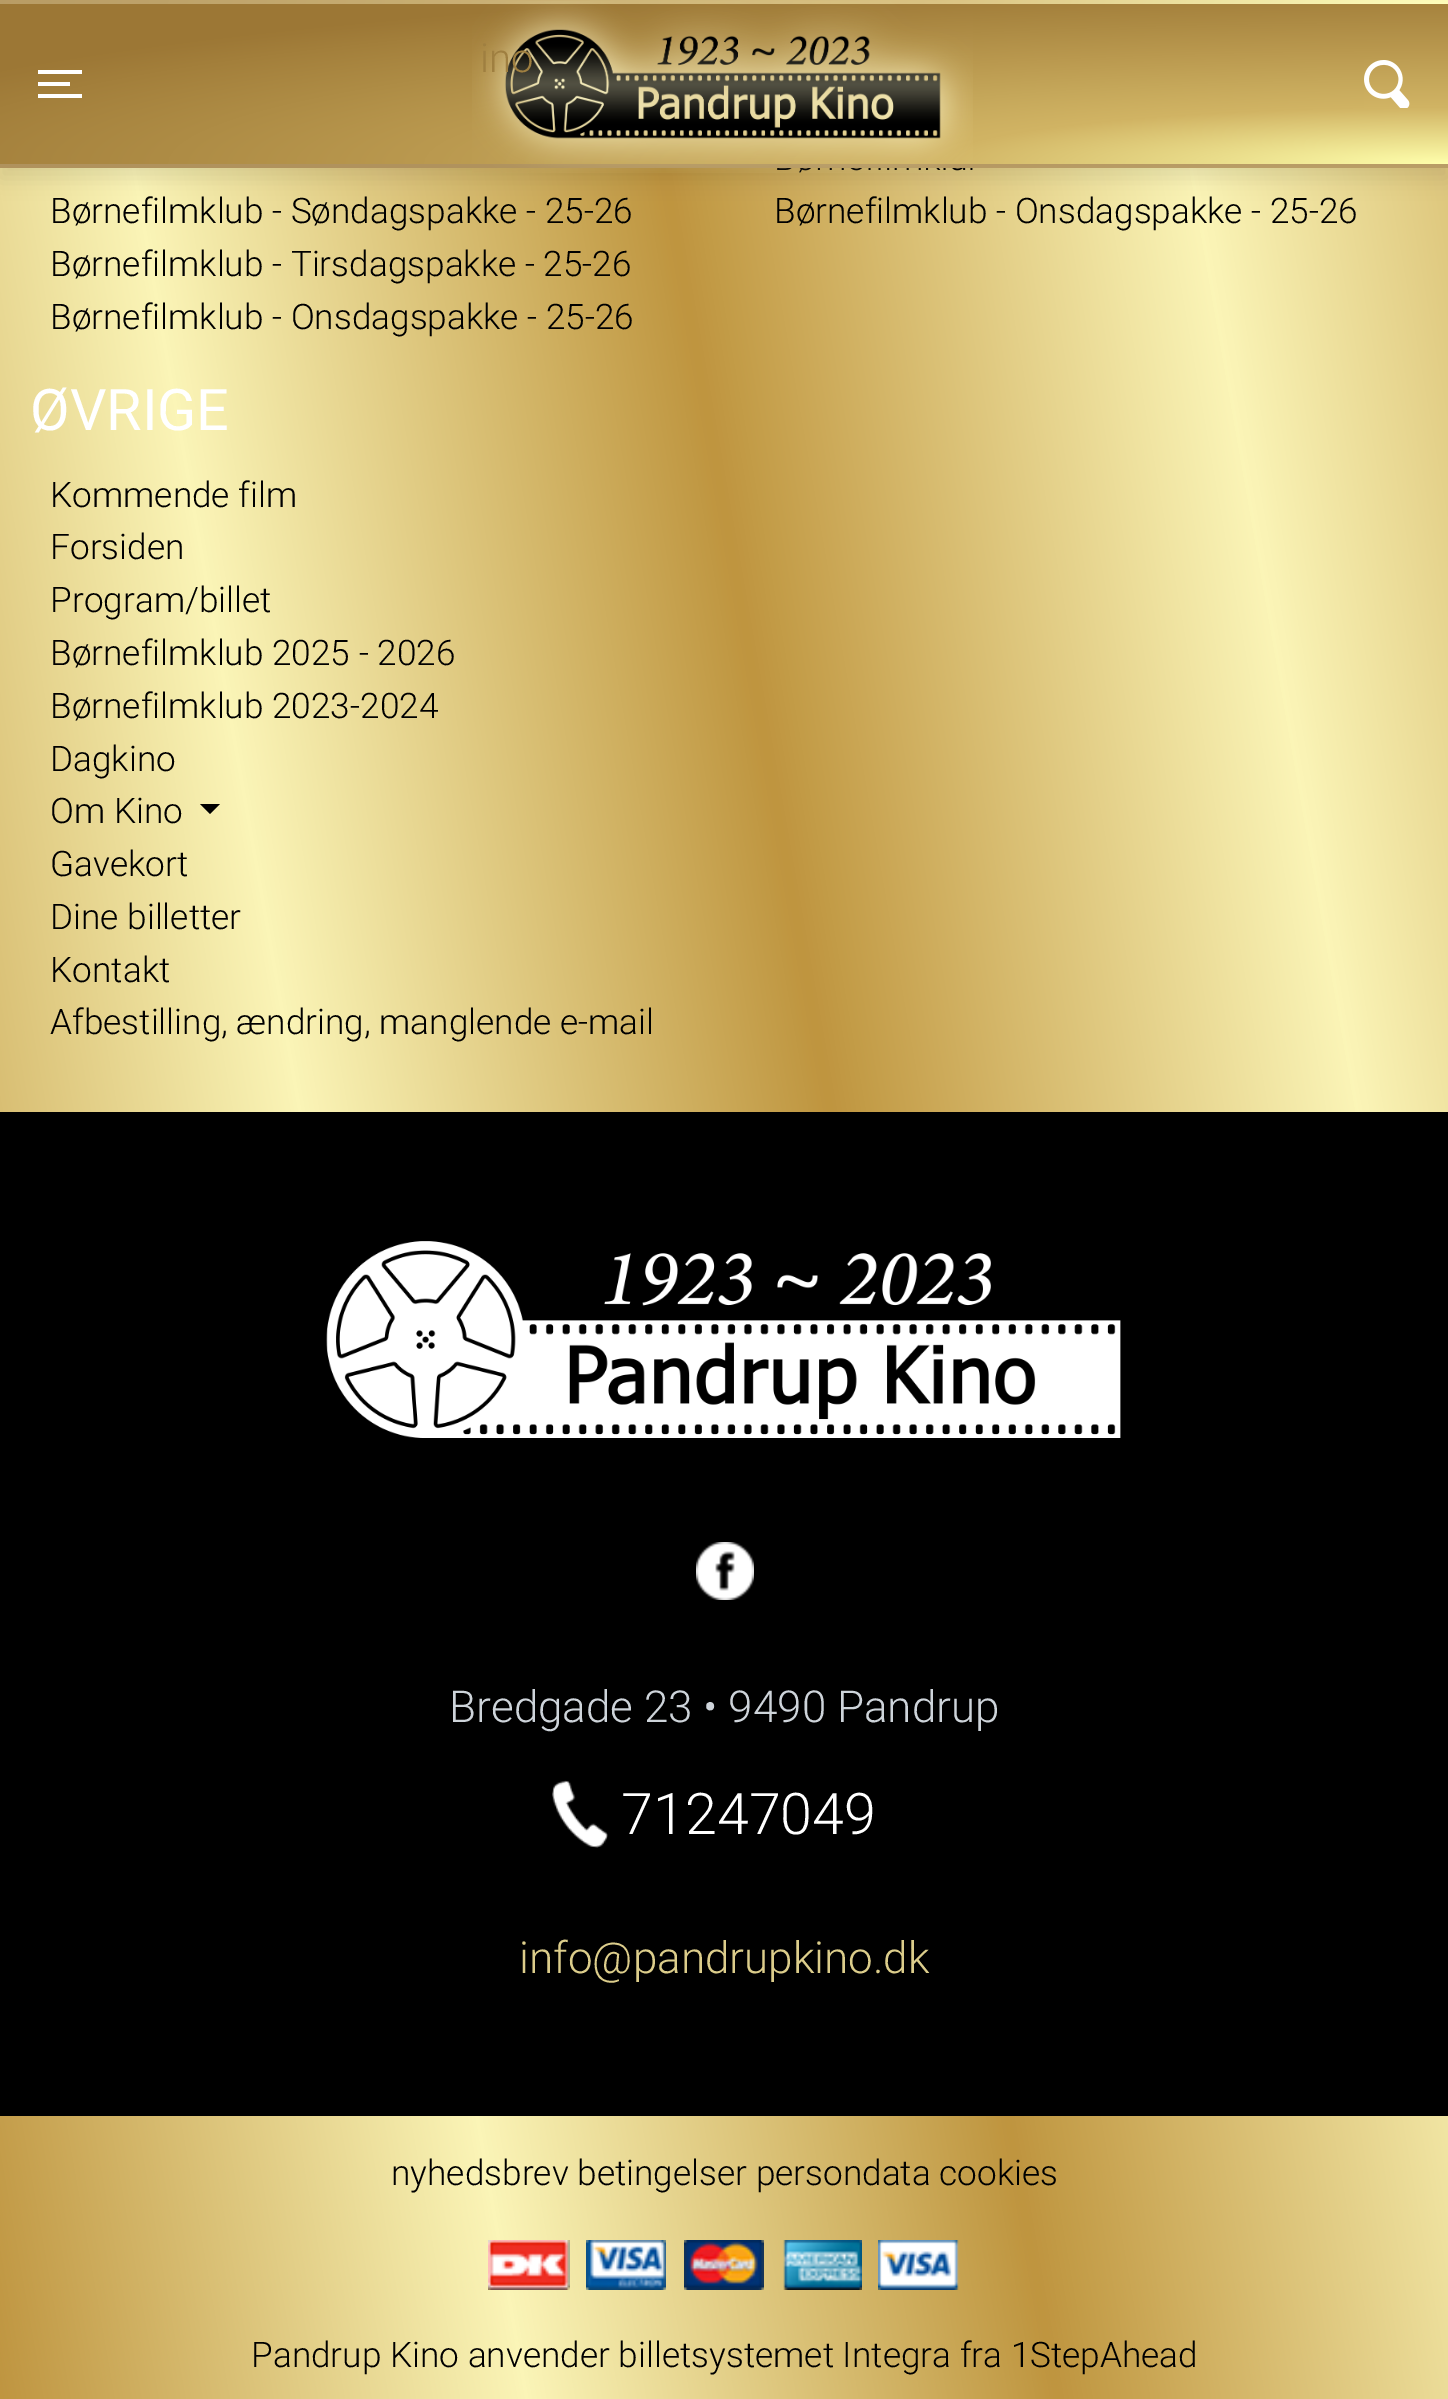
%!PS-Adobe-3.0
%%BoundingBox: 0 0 1448 2399
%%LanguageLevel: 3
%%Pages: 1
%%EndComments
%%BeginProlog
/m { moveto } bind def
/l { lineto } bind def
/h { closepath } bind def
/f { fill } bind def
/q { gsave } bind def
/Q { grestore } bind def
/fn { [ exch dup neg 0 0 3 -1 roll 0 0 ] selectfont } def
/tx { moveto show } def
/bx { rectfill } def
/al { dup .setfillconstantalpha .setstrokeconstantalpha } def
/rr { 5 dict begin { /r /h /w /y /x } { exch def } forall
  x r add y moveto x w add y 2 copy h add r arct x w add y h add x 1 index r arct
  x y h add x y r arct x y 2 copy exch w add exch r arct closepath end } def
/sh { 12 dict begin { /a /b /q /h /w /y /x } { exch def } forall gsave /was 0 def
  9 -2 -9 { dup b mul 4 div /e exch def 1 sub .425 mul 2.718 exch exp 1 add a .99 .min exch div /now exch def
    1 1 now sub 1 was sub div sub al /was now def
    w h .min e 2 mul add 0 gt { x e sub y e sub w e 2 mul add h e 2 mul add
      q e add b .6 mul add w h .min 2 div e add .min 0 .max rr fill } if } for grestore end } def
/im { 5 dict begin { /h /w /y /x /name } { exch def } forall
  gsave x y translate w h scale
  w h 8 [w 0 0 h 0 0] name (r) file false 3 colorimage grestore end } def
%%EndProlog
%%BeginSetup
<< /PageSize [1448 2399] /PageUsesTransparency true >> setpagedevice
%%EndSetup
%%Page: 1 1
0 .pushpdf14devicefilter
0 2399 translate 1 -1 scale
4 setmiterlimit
1 setgray
0 0 1448 2399 bx
q 0 168 m 1448 168 l 1448 2399 l 0 2399 l h clip newpath
<< /ShadingType 2 /ColorSpace /DeviceRGB /Coords [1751 332 -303 694] /Extend [true true] /Function << /FunctionType 3 /Domain [0 1] /Functions [<< /FunctionType 2 /Domain [0 1] /C0 [0.749 0.584 0.247] /C1 [0.984 0.961 0.718] /N 1 >> << /FunctionType 2 /Domain [0 1] /C0 [0.984 0.961 0.718] /C1 [0.749 0.584 0.247] /N 1 >> << /FunctionType 2 /Domain [0 1] /C0 [0.749 0.584 0.247] /C1 [0.984 0.961 0.718] /N 1 >> << /FunctionType 2 /Domain [0 1] /C0 [0.984 0.961 0.718] /C1 [0.749 0.584 0.247] /N 1 >>] /Bounds [0.25 0.5 0.75] /Encode [0 1 0 1 0 1 0 1] >> >> shfill Q
0 setgray
0 10 1448 168 0 10 0.1 sh
q 0 0 m 1448 0 l 1448 4 l 0 4 l h clip newpath 1448 4 translate 2048 226 scale
<< /ShadingType 3 /ColorSpace /DeviceRGB /Coords [0 0 0 0 0 1] /Extend [true true] /Function << /FunctionType 3 /Domain [0 1] /Functions [<< /FunctionType 2 /Domain [0 1] /C0 [1 1 0.675] /C1 [0.82 0.706 0.392] /N 1 >> << /FunctionType 2 /Domain [0 1] /C0 [0.82 0.706 0.392] /C1 [0.612 0.467 0.208] /N 1 >> << /FunctionType 2 /Domain [0 1] /C0 [0.612 0.467 0.208] /C1 [0.612 0.467 0.208] /N 1 >>] /Bounds [0.25 0.82] /Encode [0 1 0 1 0 1] >> >> shfill Q
q 0 4 m 1448 4 l 1448 164 l 0 164 l h clip newpath 1448 164 translate 2048 226 scale
<< /ShadingType 3 /ColorSpace /DeviceRGB /Coords [0 0 0 0 0 1] /Extend [true true] /Function << /FunctionType 3 /Domain [0 1] /Functions [<< /FunctionType 2 /Domain [0 1] /C0 [1 1 0.675] /C1 [0.82 0.706 0.392] /N 1 >> << /FunctionType 2 /Domain [0 1] /C0 [0.82 0.706 0.392] /C1 [0.612 0.467 0.208] /N 1 >> << /FunctionType 2 /Domain [0 1] /C0 [0.612 0.467 0.208] /C1 [0.612 0.467 0.208] /N 1 >>] /Bounds [0.25 0.82] /Encode [0 1 0 1 0 1] >> >> shfill Q
q 0 164 m 1448 164 l 1448 168 l 0 168 l h clip newpath 1448 324 translate 2048 226 scale
<< /ShadingType 3 /ColorSpace /DeviceRGB /Coords [0 0 0 0 0 1] /Extend [true true] /Function << /FunctionType 3 /Domain [0 1] /Functions [<< /FunctionType 2 /Domain [0 1] /C0 [1 1 0.675] /C1 [0.82 0.706 0.392] /N 1 >> << /FunctionType 2 /Domain [0 1] /C0 [0.82 0.706 0.392] /C1 [0.612 0.467 0.208] /N 1 >> << /FunctionType 2 /Domain [0 1] /C0 [0.612 0.467 0.208] /C1 [0.612 0.467 0.208] /N 1 >>] /Bounds [0.25 0.82] /Encode [0 1 0 1 0 1] >> >> shfill Q
0.2 al
1 setgray
0 0 1448 4 bx
0 164 1448 4 bx
1 al
38 70 44 4 bx
38 82 32 4 bx
38 94 44 4 bx
(image0.raw) 472 1 501 172 im
/Roboto-Light 40 fn
0.624 0.498 0.251 setrgbcolor
(ino) 480 72 tx
(image1.raw) 1364 60 46 48 im
/Roboto-Light 35.2 fn
0 setgray
(Børnefilmklub - Søndagspakke - 25-26) 50 223 tx
(Børnefilmklub - Tirsdagspakke - 25-26) 50 276 tx
(Børnefilmklub - Onsdagspakke - 25-26) 50 329 tx
(Børnefilmklub - Onsdagspakke - 25-26) 774 223 tx
/Roboto-Regular 57.5 fn
1 setgray
(ØVRIGE) 30 430 tx
/Roboto-Light 35.2 fn
0 setgray
(Kommende film) 50 507 tx
(Forsiden) 50 559 tx
(Program/billet) 50 612 tx
(Børnefilmklub 2025 - 2026) 50 665 tx
(Børnefilmklub 2023-2024) 50 718 tx
(Dagkino) 50 771 tx
(Om Kino) 50 823 tx
200 804 m 220 804 l 210 814 l h f
(Gavekort) 50 876 tx
(Dine billetter) 50 929 tx
(Kontakt) 50 982 tx
(Afbestilling, ændring, manglende e-mail) 50 1034 tx
0 1112 1448 1004 bx
(image2.raw) 326 1241 795 197 im
(image3.raw) 696 1542 58 58 im
/Roboto-Light 44 fn
0.808 0.831 0.855 setrgbcolor
(Bredgade 23 • 9490 Pandrup) 449 1722 tx
(image4.raw) 552 1780 56 68 im
/Roboto-Light 57.5 fn
1 setgray
(71247049) 621 1834 tx
/Roboto-Light 44 fn
0.863 0.804 0.545 setrgbcolor
(info@pandrupkino.dk) 519 1973 tx
/Roboto-Light 35.2 fn
0 setgray
(nyhedsbrev betingelser persondata cookies) 391 2185 tx
(image5.raw) 488 2240 82 50 im
(image6.raw) 586 2240 80 50 im
(image7.raw) 684 2240 80 50 im
(image8.raw) 783 2240 79 50 im
(image9.raw) 878 2240 81 50 im
(Pandrup Kino anvender billetsystemet Integra fra 1StepAhead) 251 2367 tx
.poppdf14devicefilter showpage
%%EOF
